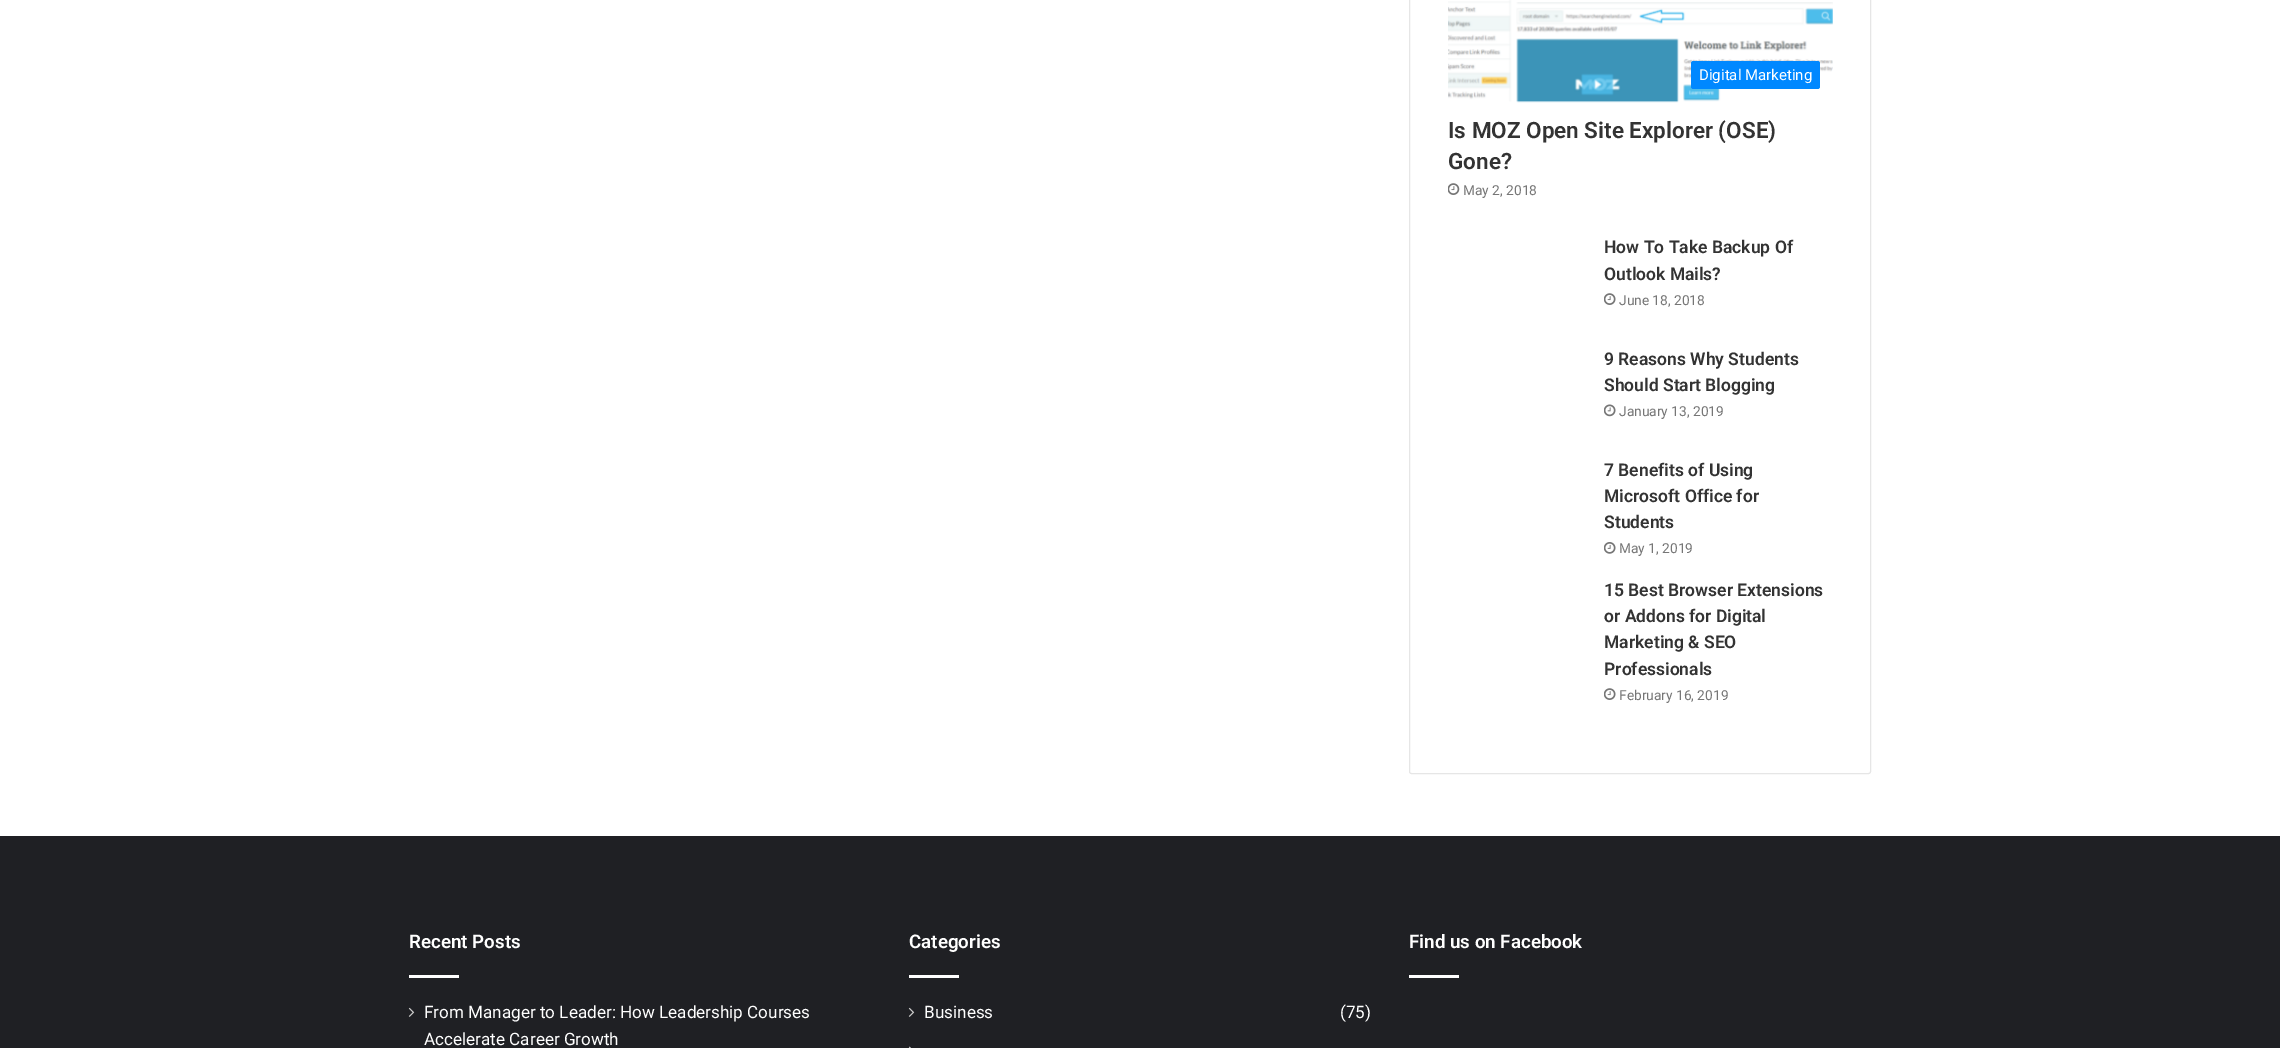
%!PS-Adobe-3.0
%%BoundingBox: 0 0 2280 1048
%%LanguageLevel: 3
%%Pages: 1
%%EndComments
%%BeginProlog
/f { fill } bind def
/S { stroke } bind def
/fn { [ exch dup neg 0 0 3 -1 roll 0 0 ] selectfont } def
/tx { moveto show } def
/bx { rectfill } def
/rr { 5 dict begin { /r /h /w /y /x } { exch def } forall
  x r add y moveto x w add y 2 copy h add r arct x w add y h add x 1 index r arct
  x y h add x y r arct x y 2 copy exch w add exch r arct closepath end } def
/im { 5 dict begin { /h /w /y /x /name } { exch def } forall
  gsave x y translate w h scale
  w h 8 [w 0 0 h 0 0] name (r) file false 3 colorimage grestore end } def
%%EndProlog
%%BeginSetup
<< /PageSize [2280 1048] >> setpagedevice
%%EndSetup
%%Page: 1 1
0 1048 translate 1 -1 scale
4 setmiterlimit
1 setgray
0 0 2280 1048 bx
0.902 setgray
1409.5 -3.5 461 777 2 rr S
(image0.raw) 1448 0 385 103 im
0 0.533 1 setrgbcolor
1691 61 129 28 2.5 rr f
/Roboto-Regular 15 fn
1 setgray
(Digital Marketing) 1699 80 tx
/Roboto-SemiBold 22.5 fn
0.2 setgray
(Is MOZ Open Site Explorer \(OSE\)) 1448 138 tx
(Gone?) 1448 169 tx
(image1.raw) 1448 183 12 12 im
/Roboto-Regular 13.75 fn
0.463 setgray
(May 2, 2018) 1463 195 tx
/Roboto-SemiBold 17.5 fn
0.2 setgray
(How To Take Backup Of) 1604 253 tx
(Outlook Mails?) 1604 280 tx
(image2.raw) 1604 293 12 12 im
/Roboto-Regular 13.75 fn
0.463 setgray
(June 18, 2018) 1619 305 tx
/Roboto-SemiBold 17.5 fn
0.2 setgray
(9 Reasons Why Students) 1604 365 tx
(Should Start Blogging) 1604 391 tx
(image3.raw) 1604 404 12 13 im
/Roboto-Regular 13.75 fn
0.463 setgray
(January 13, 2019) 1619 416 tx
/Roboto-SemiBold 17.5 fn
0.2 setgray
(7 Benefits of Using) 1604 476 tx
(Microsoft Office for) 1604 502 tx
(Students) 1604 528 tx
(image4.raw) 1604 542 12 12 im
/Roboto-Regular 13.75 fn
0.463 setgray
(May 1, 2019) 1619 553 tx
/Roboto-SemiBold 17.5 fn
0.2 setgray
(15 Best Browser Extensions) 1604 596 tx
(or Addons for Digital) 1604 622 tx
(Marketing & SEO) 1604 648 tx
(Professionals) 1604 675 tx
(image2.raw) 1604 688 12 12 im
/Roboto-Regular 13.75 fn
0.463 setgray
(February 16, 2019) 1619 700 tx
0.122 0.125 0.141 setrgbcolor
0 836 2280 212 bx
/Roboto-SemiBold 18.75 fn
1 setgray
(Recent Posts) 409 948 tx
409 975 50 3 bx
(image5.raw) 408 1007 7 10 im
/Roboto-Regular 17.1 fn
(From Manager to Leader: How Leadership Courses) 424 1018 tx
(Accelerate Career Growth) 424 1045 tx
/Roboto-SemiBold 18.75 fn
(Categories) 909 948 tx
909 975 50 3 bx
(image5.raw) 908 1007 7 10 im
/Roboto-Regular 17.1 fn
(Business) 924 1018 tx
(\(75\)) 1340 1018 tx
(image6.raw) 908 1046 3 2 im
/Roboto-SemiBold 18.75 fn
(Find us on Facebook) 1409 948 tx
1409 975 50 3 bx
showpage
%%EOF
